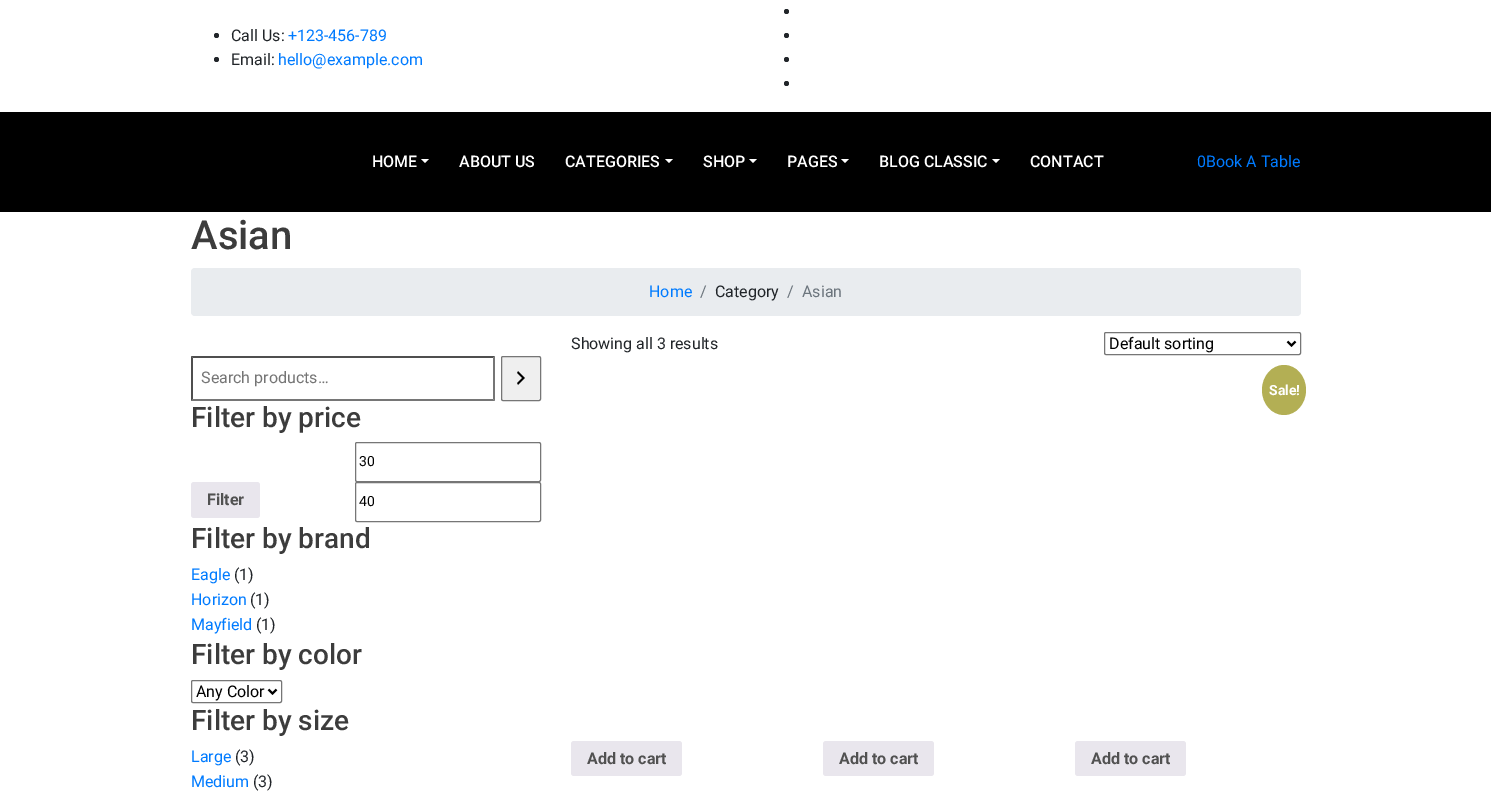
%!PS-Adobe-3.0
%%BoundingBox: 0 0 1491 794
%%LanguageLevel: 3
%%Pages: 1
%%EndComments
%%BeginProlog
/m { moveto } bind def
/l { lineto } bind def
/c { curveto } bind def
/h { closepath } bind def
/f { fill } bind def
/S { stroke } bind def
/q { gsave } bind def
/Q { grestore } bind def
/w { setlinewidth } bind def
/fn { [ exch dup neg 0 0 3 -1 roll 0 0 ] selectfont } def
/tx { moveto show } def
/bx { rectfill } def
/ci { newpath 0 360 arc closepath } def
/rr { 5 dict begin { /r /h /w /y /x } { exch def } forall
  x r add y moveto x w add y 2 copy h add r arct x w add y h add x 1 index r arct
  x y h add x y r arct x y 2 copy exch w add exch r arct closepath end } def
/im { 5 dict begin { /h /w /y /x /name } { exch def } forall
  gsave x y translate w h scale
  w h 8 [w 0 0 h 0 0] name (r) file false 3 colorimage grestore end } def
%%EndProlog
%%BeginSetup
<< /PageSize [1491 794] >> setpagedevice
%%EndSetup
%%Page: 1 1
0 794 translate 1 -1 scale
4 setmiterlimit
1 setgray
0 0 1491 794 bx
0.129 0.145 0.161 setrgbcolor
216.5 35.5 2.5 ci f
/Roboto-Regular 16 fn
(Call Us:) 231 41 tx
0 0.482 1 setrgbcolor
(+123-456-789) 288 41 tx
0.129 0.145 0.161 setrgbcolor
216.5 59.5 2.5 ci f
(Email:) 231 65 tx
0 0.482 1 setrgbcolor
(hello@example.com) 278 65 tx
0.129 0.145 0.161 setrgbcolor
786.5 11.5 2.5 ci f
786.5 35.5 2.5 ci f
786.5 59.5 2.5 ci f
786.5 83.5 2.5 ci f
0 setgray
0 112 1491 100 bx
/Roboto-Medium 16 fn
1 setgray
(HOME) 372 167 tx
421 159 m 429 159 l 425 163 l h f
(ABOUT US) 459 167 tx
(CATEGORIES) 565 167 tx
665 159 m 673 159 l 669 163 l h f
(SHOP) 703 167 tx
749 159 m 757 159 l 753 163 l h f
(PAGES) 787 167 tx
841 159 m 849 159 l 845 163 l h f
(BLOG CLASSIC) 879 167 tx
992 159 m 1000 159 l 996 163 l h f
(CONTACT) 1030 167 tx
/Roboto-Regular 16 fn
0 0.482 1 setrgbcolor
(0Book A Table) 1197 167 tx
/Roboto-Medium 40 fn
0.235 setgray
(Asian) 191 249 tx
0.914 0.925 0.937 setrgbcolor
191 268 1110 48 4 rr f
/Roboto-Regular 16 fn
0 0.482 1 setrgbcolor
(Home) 649 297 tx
0.424 0.459 0.49 setrgbcolor
(/) 700 297 tx
0.129 0.145 0.161 setrgbcolor
(Category) 715 297 tx
0.424 0.459 0.49 setrgbcolor
(/) 787 297 tx
(Asian) 802 297 tx
0.31 setgray
191 356 m 495 356 l 493 358 l 193 358 l h f
0.463 setgray
495 356 m 495 401 l 493 399 l 493 358 l h f
495 401 m 191 401 l 193 399 l 493 399 l h f
0.31 setgray
191 401 m 191 356 l 193 358 l 193 399 l h f
0.459 setgray
(Search products…) 201 383 tx
0.937 setgray
501.5 356.5 39 44 1.5 rr q f Q
0.463 setgray
S
(image0.raw) 517 371 8 14 im
/Roboto-Medium 28 fn
0.235 setgray
(Filter by price) 191 427 tx
0.463 setgray
355.5 442.5 185 39 1.5 rr S
/Roboto-Regular 14 fn
0 setgray
(30) 359 466 tx
0.914 0.902 0.929 setrgbcolor
191 482 69 36 3 rr f
/Roboto-Bold 16 fn
0.318 setgray
(Filter) 207 505 tx
0.463 setgray
355.5 482.5 185 39 1.5 rr S
/Roboto-Regular 14 fn
0 setgray
(40) 359 506 tx
/Roboto-Medium 28 fn
0.235 setgray
(Filter by brand) 191 548 tx
/Roboto-Regular 16 fn
0 0.482 1 setrgbcolor
(Eagle) 191 580 tx
0.129 0.145 0.161 setrgbcolor
(\(1\)) 234 580 tx
0 0.482 1 setrgbcolor
(Horizon) 191 605 tx
0.129 0.145 0.161 setrgbcolor
(\(1\)) 250 605 tx
0 0.482 1 setrgbcolor
(Mayfield) 191 630 tx
0.129 0.145 0.161 setrgbcolor
(\(1\)) 256 630 tx
/Roboto-Medium 28 fn
0.235 setgray
(Filter by color) 191 664 tx
0.463 setgray
191.5 680.5 90 22 1.5 rr S
0 setgray
2 w
268.5 689.5 m 272.5 693.5 l 276.5 689.5 l S
/Roboto-Regular 16 fn
(Any Color) 196 697 tx
/Roboto-Medium 28 fn
0.235 setgray
(Filter by size) 191 730 tx
/Roboto-Regular 16 fn
0 0.482 1 setrgbcolor
(Large) 191 762 tx
0.129 0.145 0.161 setrgbcolor
(\(3\)) 235 762 tx
0 0.482 1 setrgbcolor
(Medium) 191 787 tx
0.129 0.145 0.161 setrgbcolor
(\(3\)) 253 787 tx
(Showing all 3 results) 571 349 tx
0.463 setgray
1 w
1104.5 332.5 196 22 1.5 rr S
0 setgray
2 w
1287.5 341.5 m 1291.5 345.5 l 1295.5 341.5 l S
(Default sorting) 1109 349 tx
0.914 0.902 0.929 setrgbcolor
571 741 111 35 3 rr f
/Roboto-Bold 16 fn
0.318 setgray
(Add to cart) 587 764 tx
0.914 0.902 0.929 setrgbcolor
823 741 111 35 3 rr f
0.318 setgray
(Add to cart) 839 764 tx
0.702 0.686 0.329 setrgbcolor
1284 365 m 1296 365 1306 376 1306 390 c 1306 404 1296 415 1284 415 c 1272 415 1262 404 1262 390 c 1262 376 1272 365 1284 365 c h f
/Roboto-Bold 14 fn
1 setgray
(Sale!) 1269 395 tx
0.914 0.902 0.929 setrgbcolor
1075 741 111 35 3 rr f
/Roboto-Bold 16 fn
0.318 setgray
(Add to cart) 1091 764 tx
showpage
%%EOF
